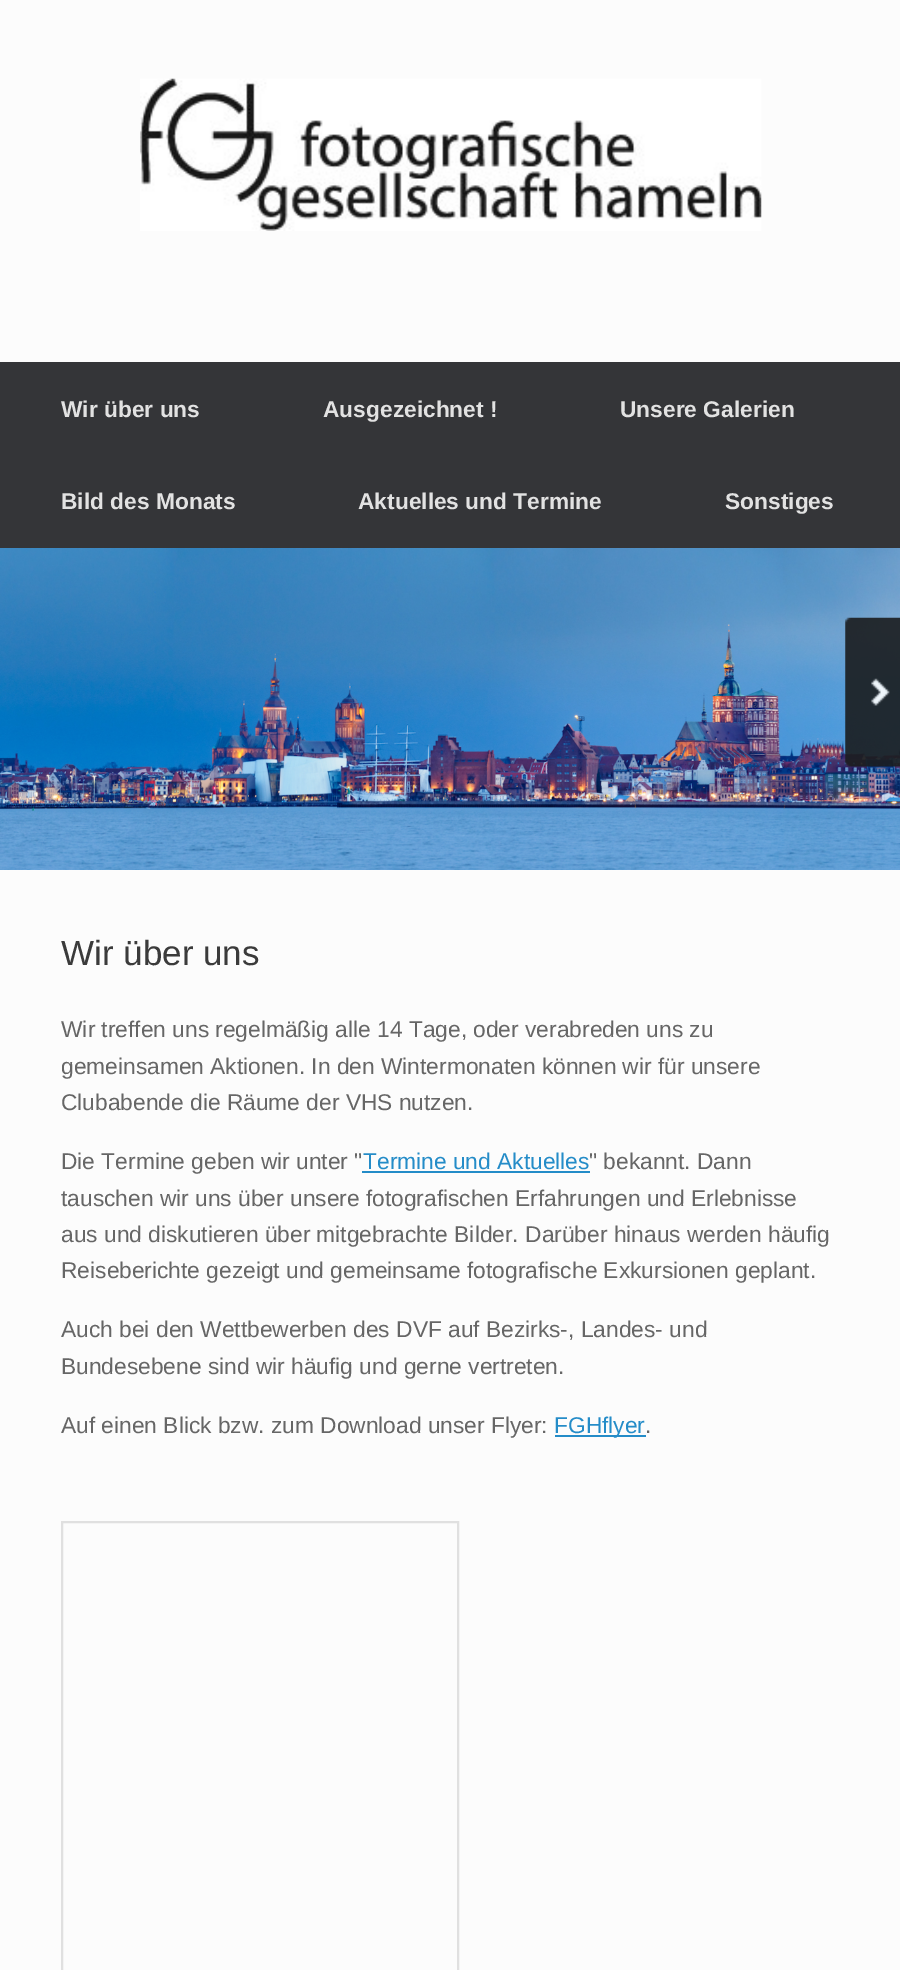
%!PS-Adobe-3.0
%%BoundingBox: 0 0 900 1970
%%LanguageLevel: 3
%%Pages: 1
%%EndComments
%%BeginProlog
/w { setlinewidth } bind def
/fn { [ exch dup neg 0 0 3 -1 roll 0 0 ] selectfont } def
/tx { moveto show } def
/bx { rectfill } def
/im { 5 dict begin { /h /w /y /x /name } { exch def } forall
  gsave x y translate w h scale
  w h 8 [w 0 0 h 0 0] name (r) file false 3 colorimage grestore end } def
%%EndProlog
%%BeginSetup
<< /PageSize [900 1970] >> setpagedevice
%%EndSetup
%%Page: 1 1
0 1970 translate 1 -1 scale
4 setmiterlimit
0.988 setgray
0 0 900 1970 bx
(image0.raw) 140 78 622 153 im
0.204 0.208 0.22 setrgbcolor
0 362 900 186 bx
/LiberationSans-Bold 22.75 fn
0.886 setgray
(Wir über uns) 61 417 tx
(Ausgezeichnet !) 323 417 tx
(Unsere Galerien) 620 417 tx
(Bild des Monats) 61 509 tx
(Aktuelles und Termine) 358 509 tx
(Sonstiges) 725 509 tx
(image1.raw) 0 548 900 322 im
(image2.raw) 845 617 55 150 im
/LiberationSans-Regular 35 fn
0.231 setgray
(Wir über uns) 61 965 tx
/LiberationSans-Regular 22.75 fn
0.4 setgray
(Wir treffen uns regelmäßig alle 14 Tage, oder verabreden uns zu) 61 1037 tx
(gemeinsamen Aktionen. In den Wintermonaten können wir für unsere) 61 1074 tx
(Clubabende die Räume der VHS nutzen.) 61 1110 tx
(Die Termine geben wir unter ") 61 1169 tx
0.141 0.549 0.784 setrgbcolor
362 1171 228 2 bx
(Termine und Aktuelles) 363 1169 tx
0.4 setgray
(" bekannt. Dann) 589 1169 tx
(tauschen wir uns über unsere fotografischen Erfahrungen und Erlebnisse) 61 1206 tx
(aus und diskutieren über mitgebrachte Bilder. Darüber hinaus werden häufig) 61 1242 tx
(Reiseberichte gezeigt und gemeinsame fotografische Exkursionen geplant.) 61 1278 tx
(Auch bei den Wettbewerben des DVF auf Bezirks-, Landes- und) 61 1337 tx
(Bundesebene sind wir häufig und gerne vertreten.) 61 1374 tx
(Auf einen Blick bzw. zum Download unser Flyer:) 61 1433 tx
0.141 0.549 0.784 setrgbcolor
555 1435 91 2 bx
(FGHflyer) 554 1433 tx
0.4 setgray
(.) 645 1433 tx
0.878 setgray
2 w
62 1522 396 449 rectstroke
showpage
%%EOF
